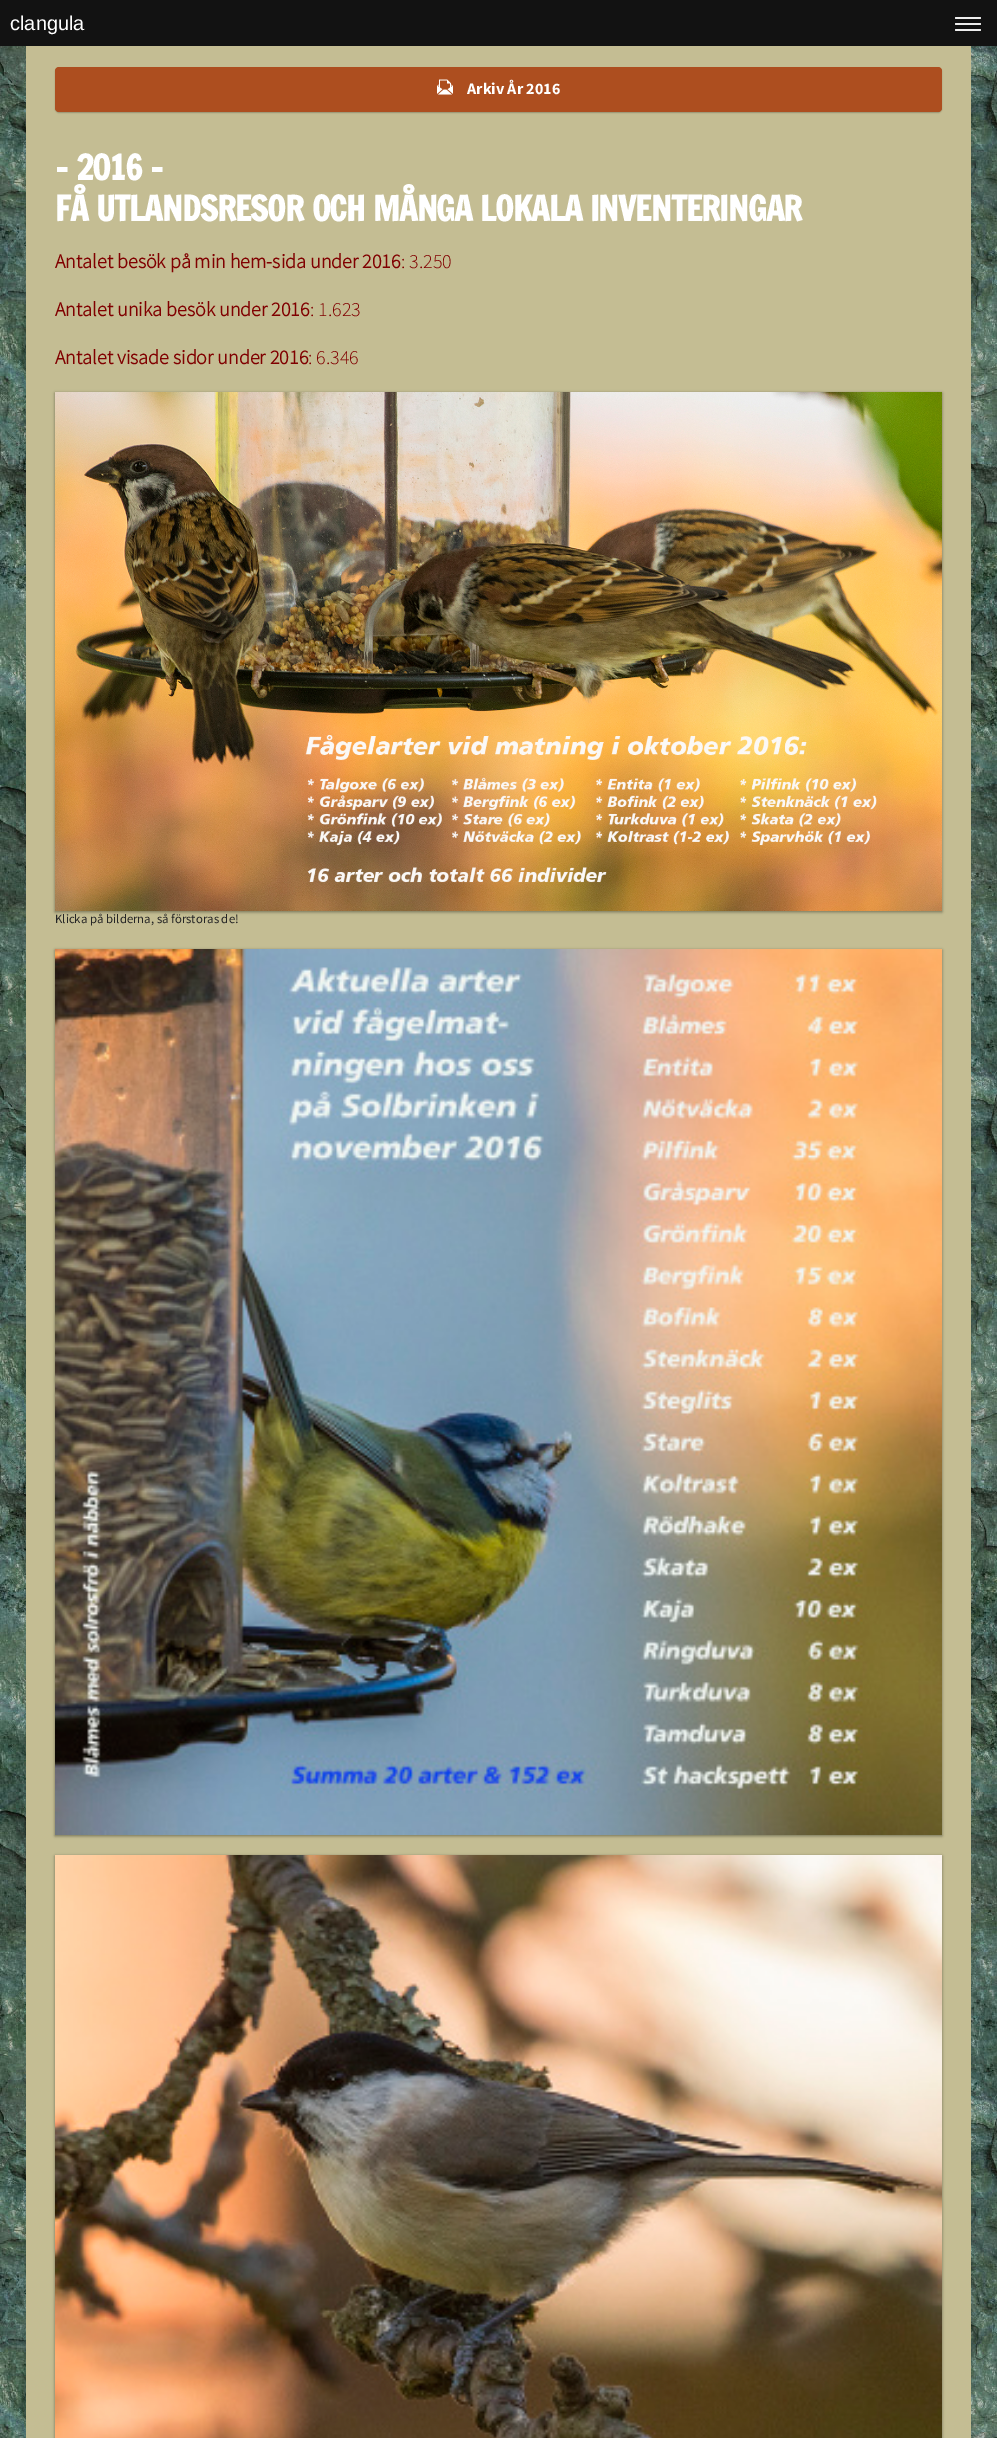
%!PS-Adobe-3.0
%%BoundingBox: 0 0 997 2438
%%LanguageLevel: 3
%%Pages: 1
%%EndComments
%%BeginProlog
/m { moveto } bind def
/f { fill } bind def
/fn { [ exch dup neg 0 0 3 -1 roll 0 0 ] selectfont } def
/tx { moveto show } def
/bx { rectfill } def
/al { dup .setfillconstantalpha .setstrokeconstantalpha } def
/rr { 5 dict begin { /r /h /w /y /x } { exch def } forall
  x r add y moveto x w add y 2 copy h add r arct x w add y h add x 1 index r arct
  x y h add x y r arct x y 2 copy exch w add exch r arct closepath end } def
/sh { 12 dict begin { /a /b /q /h /w /y /x } { exch def } forall gsave /was 0 def
  9 -2 -9 { dup b mul 4 div /e exch def 1 sub .425 mul 2.718 exch exp 1 add a .99 .min exch div /now exch def
    1 1 now sub 1 was sub div sub al /was now def
    w h .min e 2 mul add 0 gt { x e sub y e sub w e 2 mul add h e 2 mul add
      q e add b .6 mul add w h .min 2 div e add .min 0 .max rr fill } if } for grestore end } def
/im { 5 dict begin { /h /w /y /x /name } { exch def } forall
  gsave x y translate w h scale
  w h 8 [w 0 0 h 0 0] name (r) file false 3 colorimage grestore end } def
%%EndProlog
%%BeginSetup
<< /PageSize [997 2438] /PageUsesTransparency true >> setpagedevice
%%EndSetup
%%Page: 1 1
0 .pushpdf14devicefilter
0 2438 translate 1 -1 scale
4 setmiterlimit
1 setgray
0 0 997 2438 bx
(image0.raw) 0 46 997 2392 im
0.071 setgray
0 0 997 46 bx
/LiberationSans-Regular 20 fn
1 setgray
(clangula) 10 30 tx
0.933 setgray
955 17 26 2 1 rr f
955 23 26 2 1 rr f
955 29 26 2 1 rr f
0.769 0.741 0.576 setrgbcolor
26 46 945 2392 bx
0 setgray
56 69 885 43 3 1 0.6 sh
0.678 0.306 0.122 setrgbcolor
55 67 887 45 4 rr f
(image1.raw) 437 79 16 16 im
/SourceSansPro-Bold 16 fn
1 setgray
(Arkiv År 2016) 467 94 tx
/FrancoisOne-Bold 34 fn
55 180 m 1 0 32 -1 0 (- 2016 -) awidthshow
55 221 m 1 0 32 -1 0 (FÅ UTLANDSRESOR OCH MÅNGA LOKALA INVENTERINGAR) awidthshow
/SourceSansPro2-Bold 20 fn
0.502 0 0 setrgbcolor
(Antalet besök på min hem-sida under 2016) 55 268 tx
/SourceSansPro-Light 20 fn
(: 3.250) 401 268 tx
/SourceSansPro2-Bold 20 fn
(Antalet unika besök under 2016) 55 316 tx
/SourceSansPro-Light 20 fn
(: 1.623) 310 316 tx
/SourceSansPro2-Bold 20 fn
(Antalet visade sidor under 2016) 55 364 tx
/SourceSansPro-Light 20 fn
(: 6.346) 308 364 tx
0 setgray
55 393 887 519 0 1.5 0.4 sh
(image2.raw) 55 392 887 519 im
/SourceSansPro-Regular 12.75 fn
0.149 setgray
(Klicka på bilderna, så förstoras de!) 55 923 tx
0 setgray
55 950 887 886 0 1.5 0.4 sh
(image3.raw) 55 949 887 886 im
55 1856 887 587 0 1.5 0.4 sh
(image4.raw) 55 1855 887 583 im
.poppdf14devicefilter showpage
%%EOF
